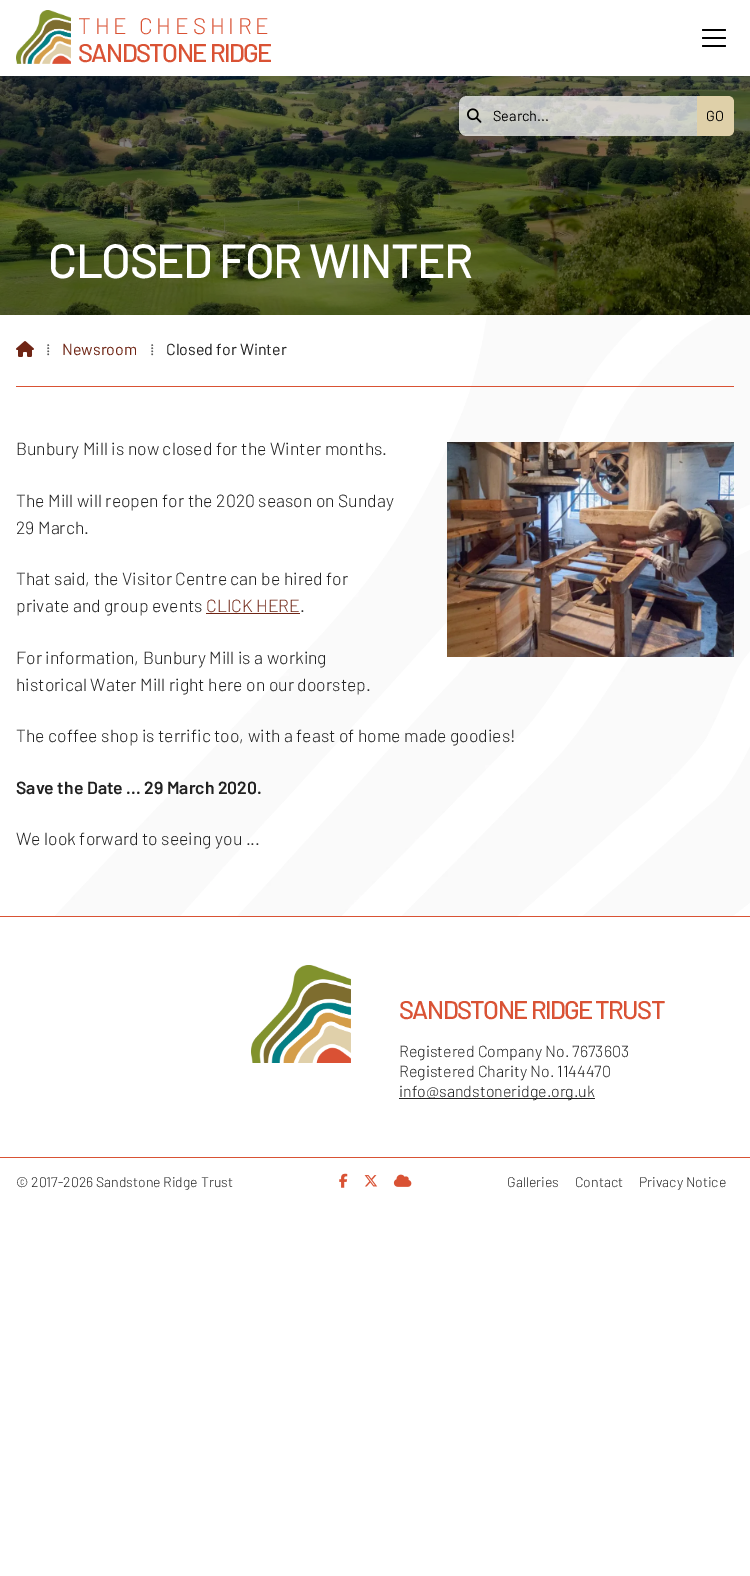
%!PS-Adobe-3.0
%%BoundingBox: 0 0 750 1576
%%LanguageLevel: 3
%%Pages: 1
%%EndComments
%%BeginProlog
/m { moveto } bind def
/l { lineto } bind def
/c { curveto } bind def
/h { closepath } bind def
/f { fill } bind def
/fn { [ exch dup neg 0 0 3 -1 roll 0 0 ] selectfont } def
/tx { moveto show } def
/bx { rectfill } def
/al { dup .setfillconstantalpha .setstrokeconstantalpha } def
/rr { 5 dict begin { /r /h /w /y /x } { exch def } forall
  x r add y moveto x w add y 2 copy h add r arct x w add y h add x 1 index r arct
  x y h add x y r arct x y 2 copy exch w add exch r arct closepath end } def
/im { 5 dict begin { /h /w /y /x /name } { exch def } forall
  gsave x y translate w h scale
  w h 8 [w 0 0 h 0 0] name (r) file false 3 colorimage grestore end } def
%%EndProlog
%%BeginSetup
<< /PageSize [750 1576] /PageUsesTransparency true >> setpagedevice
%%EndSetup
%%Page: 1 1
0 .pushpdf14devicefilter
0 1576 translate 1 -1 scale
4 setmiterlimit
1 setgray
0 0 750 1576 bx
(image0.raw) 54 315 696 601 im
(image1.raw) 16 10 55 54 im
/Barlow-Light 22.5 fn
0.851 0.322 0.204 setrgbcolor
78 34 m 3.8 0 (THE CHESHIRE) ashow
/Barlow-Medium 25.6 fn
78 62 m -1.6 0 (SANDSTONE RIDGE) ashow
(image3.raw) 0 76 750 239 im
0.73 al
1 setgray
459 96 275 40 8 rr f
1 al
(image2.raw) 467 108 15 15 im
/Barlow-Regular 14.5 fn
0 setgray
(Search...) 493 121 tx
0.875 0.816 0.663 setrgbcolor
697 96 m 728 96 l 731.5 96 734 98.5 734 102 c 734 130 l 734 133.5 731.5 136 728 136 c 697 136 l h f
0 setgray
(GO) 706 121 tx
702 29 24 2 1 rr f
702 37 24 2 1 rr f
702 45 24 2 1 rr f
/Barlow-Medium 48 fn
1 setgray
48 278 m -1.6 0 (CLOSED FOR WINTER) ashow
0.851 0.322 0.204 setrgbcolor
16 386 718 1 bx
(image4.raw) 16 341 18 16 im
/LiberationSerif-Regular 16 fn
0.349 setgray
(⁞) 46 355 tx
/Barlow-Regular 16 fn
0.435 0.145 0.082 setrgbcolor
(Newsroom) 62 355 tx
/LiberationSerif-Regular 16 fn
0.349 setgray
(⁞) 150 355 tx
/Barlow-Regular 16 fn
0.129 setgray
(Closed for Winter) 166 355 tx
/Barlow-Light 17.6 fn
(Bunbury Mill is now closed for the Winter months.) 16 455 tx
(image5.raw) 447 442 287 215 im
(The Mill will reopen for the 2020 season on Sunday) 16 507 tx
(29 March.) 16 534 tx
(That said, the Visitor Centre can be hired for) 16 585 tx
(private and group events) 16 612 tx
0.435 0.145 0.082 setrgbcolor
(CLICK HERE) 206 612 tx
206 613 94 1 bx
0.129 setgray
(.) 300 612 tx
(For information, Bunbury Mill is a working) 16 664 tx
(historical Water Mill right here on our doorstep.) 16 691 tx
(The coffee shop is terrific too, with a feast of home made goodies!) 16 742 tx
/Barlow-SemiBold 17.6 fn
(Save the Date ... 29 March 2020.) 16 794 tx
/Barlow-Light 17.6 fn
(We look forward to seeing you ...) 16 845 tx
0.851 0.322 0.204 setrgbcolor
0 916 750 1 bx
0 1157 750 1 bx
(image6.raw) 251 965 100 98 im
/Barlow-Medium 25.6 fn
399 1019 m -1.6 0 (SANDSTONE RIDGE TRUST) ashow
/Barlow-Light 16 fn
0.129 setgray
(Registered Company No. 7673603) 399 1057 tx
(Registered Charity No. 1144470) 399 1077 tx
399 1098 196 1 bx
(info@sandstoneridge.org.uk) 399 1097 tx
/Barlow-Light 14 fn
(© 2017-2026 Sandstone Ridge Trust) 16 1187 tx
(image7.raw) 339 1173 9 15 im
(image8.raw) 364 1175 14 12 im
(image9.raw) 393 1174 19 13 im
(Galleries) 507 1187 tx
(Contact) 575 1187 tx
(Privacy Notice) 639 1187 tx
.poppdf14devicefilter showpage
%%EOF
